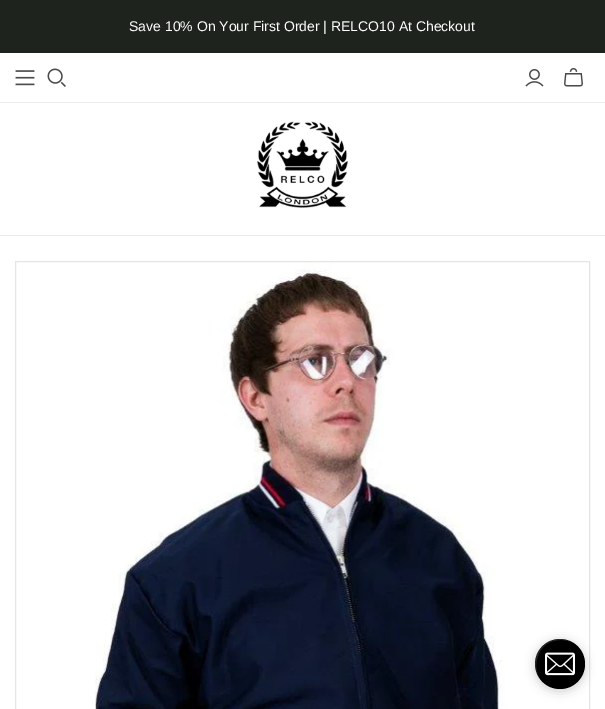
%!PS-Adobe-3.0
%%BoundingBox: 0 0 605 709
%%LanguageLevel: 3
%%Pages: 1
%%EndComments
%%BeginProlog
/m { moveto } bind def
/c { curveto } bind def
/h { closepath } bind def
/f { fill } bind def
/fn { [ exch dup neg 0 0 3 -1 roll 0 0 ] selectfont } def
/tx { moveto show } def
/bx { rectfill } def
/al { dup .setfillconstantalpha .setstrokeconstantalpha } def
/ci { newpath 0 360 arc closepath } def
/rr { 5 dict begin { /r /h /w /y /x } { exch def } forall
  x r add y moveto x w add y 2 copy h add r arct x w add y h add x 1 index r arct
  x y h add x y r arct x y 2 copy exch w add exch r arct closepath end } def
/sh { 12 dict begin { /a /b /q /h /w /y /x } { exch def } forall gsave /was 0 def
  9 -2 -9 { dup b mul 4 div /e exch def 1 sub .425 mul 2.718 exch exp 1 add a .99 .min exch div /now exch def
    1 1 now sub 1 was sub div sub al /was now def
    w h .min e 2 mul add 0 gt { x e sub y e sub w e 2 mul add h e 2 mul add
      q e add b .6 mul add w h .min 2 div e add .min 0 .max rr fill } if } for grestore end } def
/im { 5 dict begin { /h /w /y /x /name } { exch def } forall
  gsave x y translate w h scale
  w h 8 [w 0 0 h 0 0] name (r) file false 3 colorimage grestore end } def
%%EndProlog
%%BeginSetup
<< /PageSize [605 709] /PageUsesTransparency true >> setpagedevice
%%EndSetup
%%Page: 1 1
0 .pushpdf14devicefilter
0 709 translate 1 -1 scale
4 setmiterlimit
1 setgray
0 0 605 709 bx
0.118 0.137 0.118 setrgbcolor
0 0 605 53 bx
/LiberationSans-Regular 14 fn
0.996 setgray
(Save 10% On Your First Order | RELCO10 At Checkout) 129 31 tx
0.922 setgray
0 235 605 1 bx
(image0.raw) 15 70 20 16 im
(image1.raw) 47 68 19 19 im
(image2.raw) 525 69 19 18 im
(image3.raw) 564 68 19 19 im
0 102 605 1 bx
(image4.raw) 257 121 91 87 im
(image5.raw) 95 261 409 448 im
0.1 al
0 setgray
15.5 261.5 574 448 rectstroke
1 al
0.502 setgray
535 641 50 50 25 5.5 0.4 sh
0 setgray
560 664 25 ci f
0.15 al
1 setgray
561 640 m 566 640 570 641 574 643 c 550 628 523 658 540 680 c 531 665 538 640 561 640 c h f
1 al
(image6.raw) 545 652 30 24 im
.poppdf14devicefilter showpage
%%EOF
